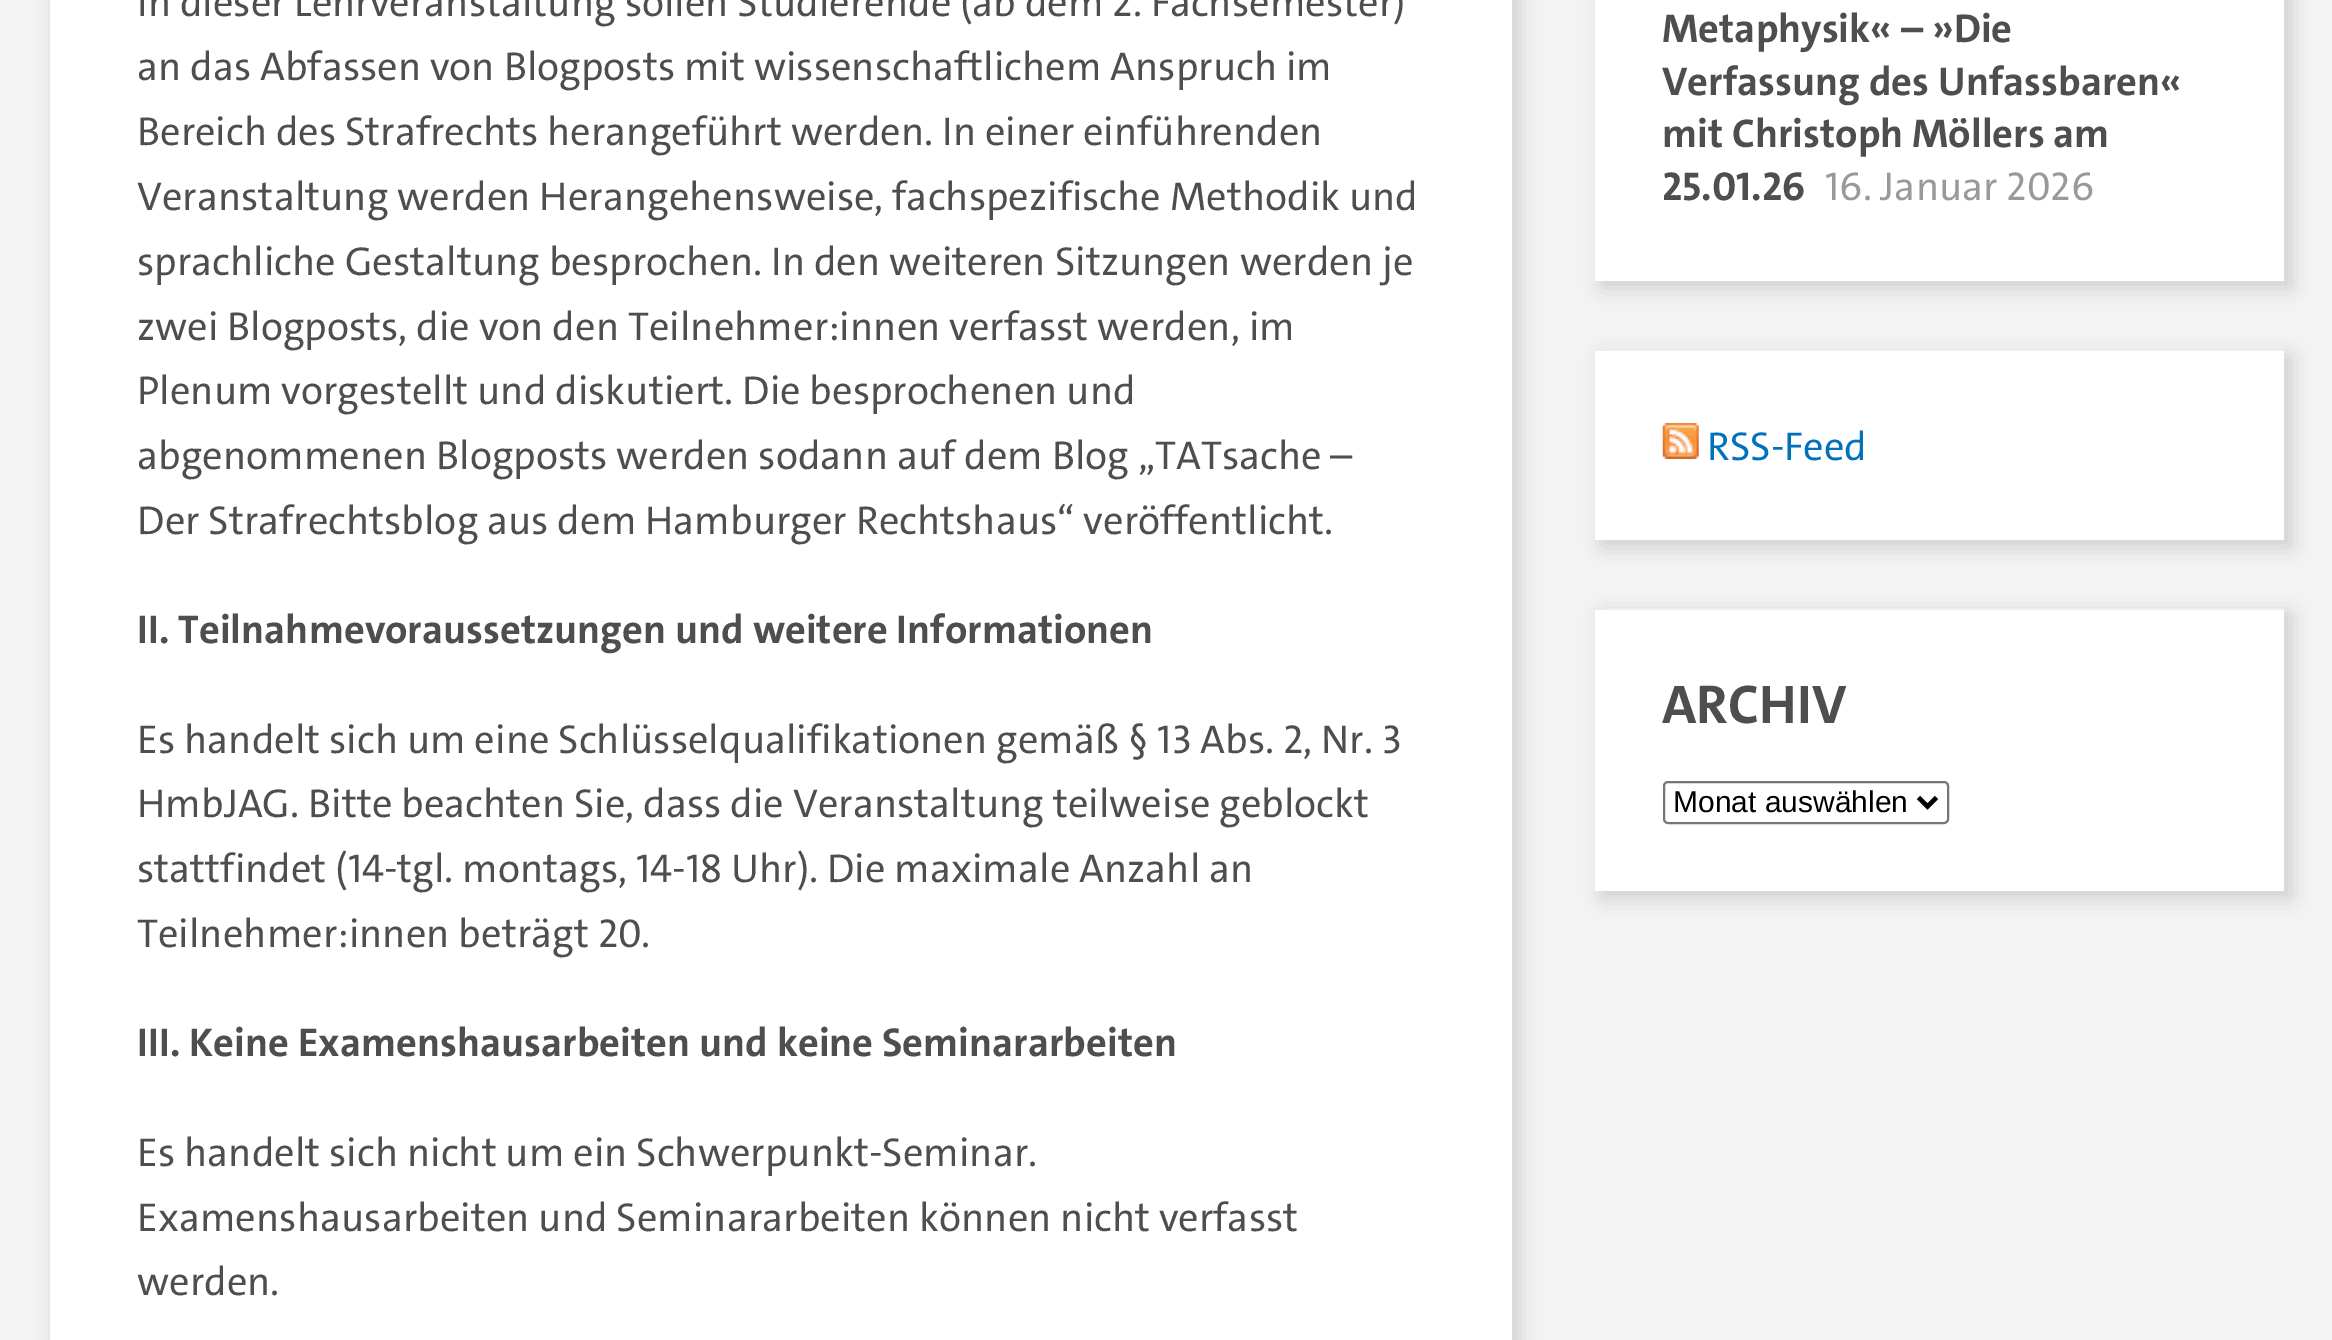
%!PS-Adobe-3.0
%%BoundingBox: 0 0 2332 1340
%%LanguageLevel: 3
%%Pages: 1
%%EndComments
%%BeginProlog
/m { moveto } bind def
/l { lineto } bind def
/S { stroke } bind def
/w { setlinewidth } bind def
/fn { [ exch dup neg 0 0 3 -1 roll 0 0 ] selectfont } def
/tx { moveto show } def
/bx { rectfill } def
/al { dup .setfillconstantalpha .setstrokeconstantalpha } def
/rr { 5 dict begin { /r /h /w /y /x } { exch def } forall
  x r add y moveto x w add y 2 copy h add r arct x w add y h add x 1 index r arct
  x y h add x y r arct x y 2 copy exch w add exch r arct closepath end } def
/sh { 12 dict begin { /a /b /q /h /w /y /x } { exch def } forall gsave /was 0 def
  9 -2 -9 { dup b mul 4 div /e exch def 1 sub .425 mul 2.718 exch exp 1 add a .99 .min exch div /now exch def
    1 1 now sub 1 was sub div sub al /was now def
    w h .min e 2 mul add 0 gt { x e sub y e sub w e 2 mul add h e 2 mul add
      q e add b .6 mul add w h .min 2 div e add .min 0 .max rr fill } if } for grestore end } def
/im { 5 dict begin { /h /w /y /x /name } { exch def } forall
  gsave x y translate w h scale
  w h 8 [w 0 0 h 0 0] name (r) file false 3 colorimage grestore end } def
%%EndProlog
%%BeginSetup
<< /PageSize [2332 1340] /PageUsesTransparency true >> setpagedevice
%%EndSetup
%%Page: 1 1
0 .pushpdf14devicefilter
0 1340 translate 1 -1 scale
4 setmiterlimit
0.953 setgray
0 0 2332 1340 bx
0 setgray
56 -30 1463 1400 0 10 0.15 sh
1 setgray
50 0 1462 1340 bx
/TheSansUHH-Regular 40.5 fn
0.306 setgray
(In dieser Lehrveranstaltung sollen Studierende \(ab dem 2. Fachsemester\)) 137 16 tx
(an das Abfassen von Blogposts mit wissenschaftlichem Anspruch im) 137 80 tx
(Bereich des Strafrechts herangeführt werden. In einer einführenden) 137 145 tx
(Veranstaltung werden Herangehensweise, fachspezifische Methodik und) 137 210 tx
(sprachliche Gestaltung besprochen. In den weiteren Sitzungen werden je) 137 275 tx
(zwei Blogposts, die von den Teilnehmer:innen verfasst werden, im) 137 340 tx
(Plenum vorgestellt und diskutiert. Die besprochenen und) 137 404 tx
(abgenommenen Blogposts werden sodann auf dem Blog „TATsache –) 137 469 tx
(Der Strafrechtsblog aus dem Hamburger Rechtshaus“ veröffentlicht.) 137 534 tx
/TheSansUHH-Bold 40.5 fn
(II. Teilnahmevoraussetzungen und weitere Informationen) 137 643 tx
/TheSansUHH-Regular 40.5 fn
(Es handelt sich um eine Schlüsselqualifikationen gemäß § 13 Abs. 2, Nr. 3) 137 753 tx
(HmbJAG. Bitte beachten Sie, dass die Veranstaltung teilweise geblockt) 137 817 tx
(stattfindet \(14-tgl. montags, 14-18 Uhr\). Die maximale Anzahl an) 137 882 tx
(Teilnehmer:innen beträgt 20.) 137 947 tx
/TheSansUHH-Bold 40.5 fn
(III. Keine Examenshausarbeiten und keine Seminararbeiten) 137 1056 tx
/TheSansUHH-Regular 40.5 fn
(Es handelt sich nicht um ein Schwerpunkt-Seminar.) 137 1166 tx
(Examenshausarbeiten und Seminararbeiten können nicht verfasst) 137 1231 tx
(werden.) 137 1295 tx
0 setgray
1602 -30 689 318 0 10 0.15 sh
1 setgray
1595 0 689 281 bx
/TheSansUHH-Bold 40.5 fn
0.306 setgray
(Metaphysik« – »Die) 1662 42 tx
(Verfassung des Unfassbaren«) 1662 95 tx
(mit Christoph Möllers am) 1662 147 tx
(25.01.26) 1662 200 tx
/TheSansUHH-Regular 40.5 fn
0.6 setgray
(16. Januar 2026) 1825 200 tx
0 setgray
1602 356 689 191 0 10 0.15 sh
1 setgray
1595 351 689 189 bx
0.933 setgray
1595 349 689 2 bx
(image0.raw) 1662 423 37 36 im
0.008 0.443 0.733 setrgbcolor
(RSS-Feed) 1707 460 tx
0 setgray
1602 614 689 284 0 10 0.15 sh
1 setgray
1595 610 689 281 bx
0.933 setgray
1606 608 678 2 bx
/TheSansUHH-Bold 55 fn
0.306 setgray
(ARCHIV) 1662 723 tx
0.463 setgray
2 w
1664 782 284 41 4 rr S
0 setgray
4.5 w
1918.5 797.5 m 1927.5 806.5 l 1936.5 797.5 l S
/LiberationSans-Regular 30 fn
(Monat auswählen) 1673 812 tx
.poppdf14devicefilter showpage
%%EOF
